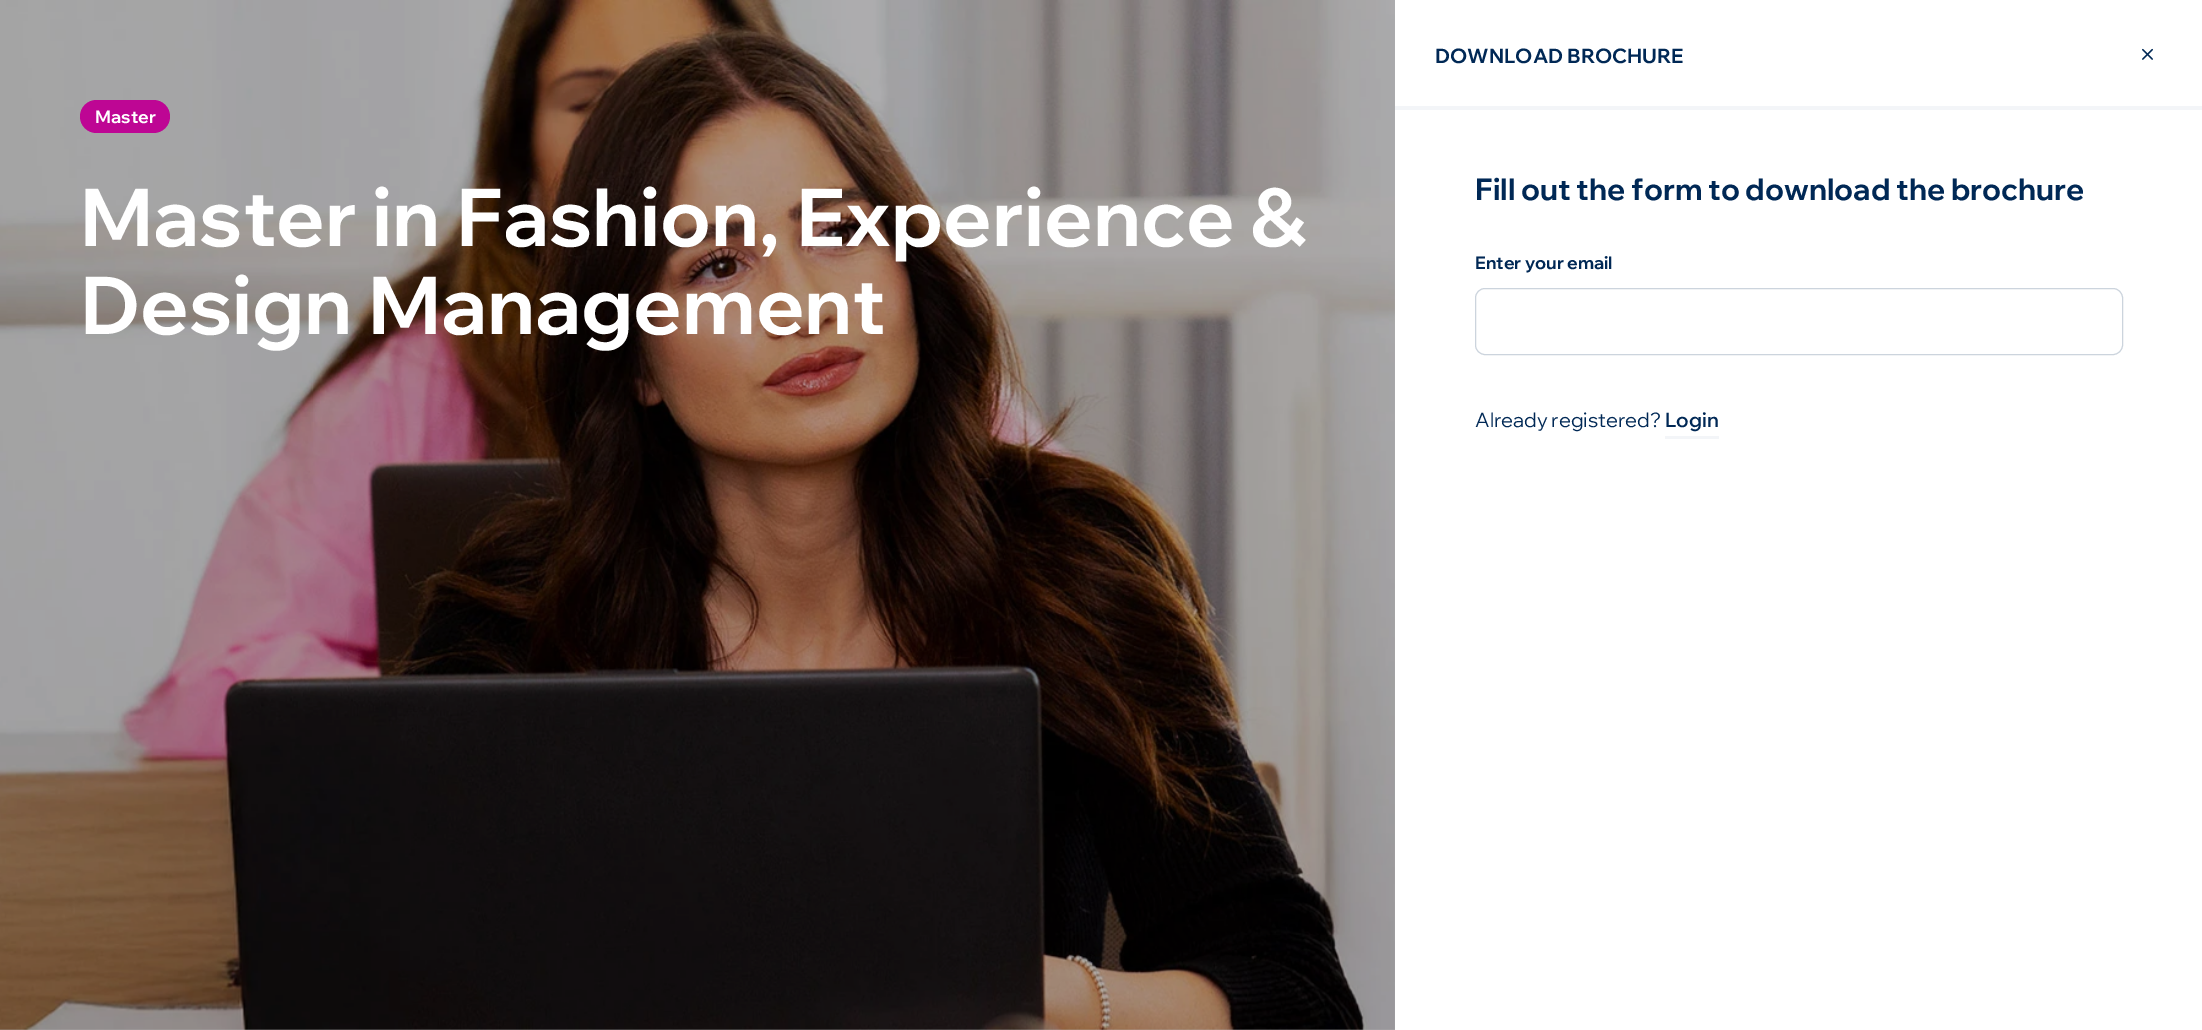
%!PS-Adobe-3.0
%%BoundingBox: 0 0 2202 1030
%%LanguageLevel: 3
%%Pages: 1
%%EndComments
%%BeginProlog
/f { fill } bind def
/S { stroke } bind def
/fn { [ exch dup neg 0 0 3 -1 roll 0 0 ] selectfont } def
/tx { moveto show } def
/bx { rectfill } def
/rr { 5 dict begin { /r /h /w /y /x } { exch def } forall
  x r add y moveto x w add y 2 copy h add r arct x w add y h add x 1 index r arct
  x y h add x y r arct x y 2 copy exch w add exch r arct closepath end } def
/im { 5 dict begin { /h /w /y /x /name } { exch def } forall
  gsave x y translate w h scale
  w h 8 [w 0 0 h 0 0] name (r) file false 3 colorimage grestore end } def
%%EndProlog
%%BeginSetup
<< /PageSize [2202 1030] >> setpagedevice
%%EndSetup
%%Page: 1 1
0 1030 translate 1 -1 scale
4 setmiterlimit
1 setgray
0 0 2202 1030 bx
0.702 setgray
0 0 1395 1030 bx
(image0.raw) 0 0 1395 1030 im
0.745 0.024 0.58 setrgbcolor
80 100 90 33 16.5 rr f
/WixMadeforDisplay-Bold 17.5 fn
1 setgray
(Master) 95 123 tx
/WixMadeforDisplay-Bold 80 fn
(Master in Fashion, Experience &) 80 246 tx
(Design Management) 80 334 tx
/WixMadeforDisplay-Bold 20 fn
0 0.157 0.333 setrgbcolor
(DOWNLOAD BROCHURE) 1435 63 tx
(image1.raw) 2142 48 11 12 im
0.953 0.961 0.973 setrgbcolor
1395 106 807 4 bx
/WixMadeforDisplay-Bold 30 fn
0 0.157 0.333 setrgbcolor
(Fill out the form to download the brochure) 1475 200 tx
/WixMadeforDisplay-Bold 17.5 fn
(Enter your email) 1475 269 tx
0.8 0.831 0.867 setrgbcolor
1475.5 288.5 647 66 9.5 rr S
/WixMadeforDisplay-Regular 20 fn
0 0.157 0.333 setrgbcolor
(Already registered?) 1475 427 tx
/WixMadeforDisplay-SemiBold 20 fn
(Login) 1665 427 tx
0.953 0.961 0.973 setrgbcolor
1665 436 54 3 bx
showpage
%%EOF
